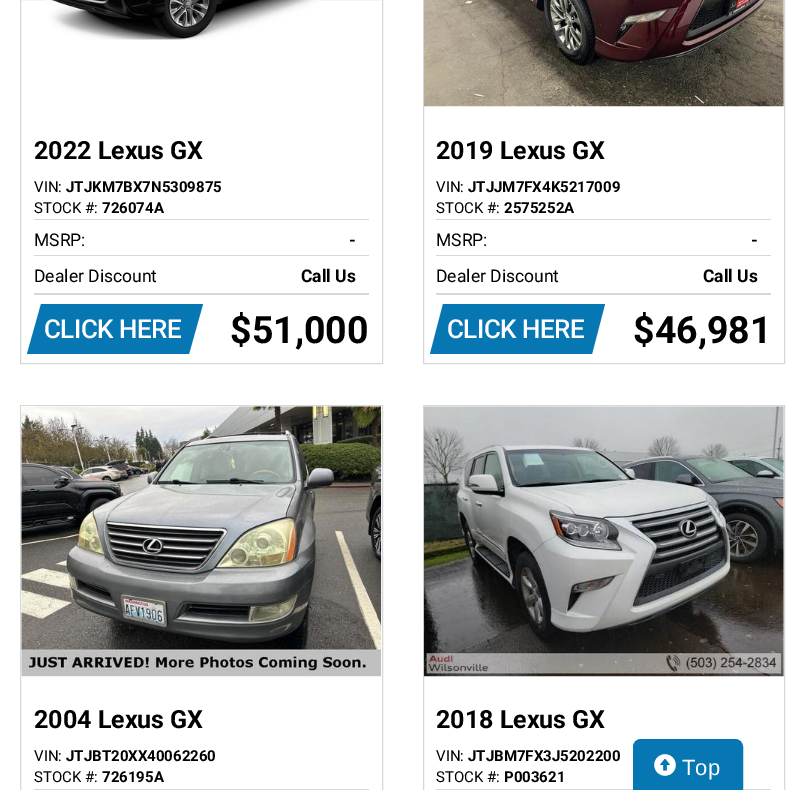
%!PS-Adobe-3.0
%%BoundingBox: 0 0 805 790
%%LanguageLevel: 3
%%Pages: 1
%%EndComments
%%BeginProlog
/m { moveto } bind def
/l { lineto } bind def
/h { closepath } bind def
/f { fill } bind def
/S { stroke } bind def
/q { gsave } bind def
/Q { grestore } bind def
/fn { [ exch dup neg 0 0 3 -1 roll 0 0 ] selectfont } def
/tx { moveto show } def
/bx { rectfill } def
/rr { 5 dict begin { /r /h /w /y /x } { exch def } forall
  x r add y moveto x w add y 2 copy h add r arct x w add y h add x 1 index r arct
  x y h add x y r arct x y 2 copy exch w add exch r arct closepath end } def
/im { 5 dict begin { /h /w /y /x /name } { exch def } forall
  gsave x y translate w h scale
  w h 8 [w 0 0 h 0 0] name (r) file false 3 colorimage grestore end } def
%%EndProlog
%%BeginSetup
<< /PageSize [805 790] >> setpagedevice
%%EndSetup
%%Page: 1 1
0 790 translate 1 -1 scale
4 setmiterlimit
1 setgray
0 0 805 790 bx
0.831 0.847 0.851 setrgbcolor
20.5 -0.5 362 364 rectstroke
(image0.raw) 46 0 274 40 im
/Roboto-Bold 25 fn
0 setgray
(2022 Lexus GX) 34 159 tx
/Roboto-Regular 15 fn
(VIN:) 34 192 tx
/Roboto-Bold 15 fn
(JTJKM7BX7N5309875) 66 192 tx
/Roboto-Regular 15 fn
(STOCK #:) 34 213 tx
/Roboto-Bold 15 fn
(726074A) 102 213 tx
0.831 0.847 0.851 setrgbcolor
34 219 335 1 bx
34 255 335 1 bx
/Roboto-Regular 17.5 fn
0 setgray
(MSRP:) 34 246 tx
/Roboto-Bold 17.5 fn
(-) 349 246 tx
0.831 0.847 0.851 setrgbcolor
34 293 335 2 bx
/Roboto-Regular 17.5 fn
0 setgray
(Dealer Discount) 34 282 tx
/Roboto-Bold 17.5 fn
(Call Us) 301 282 tx
0.027 0.467 0.702 setrgbcolor
41 304 m 203 304 l 189 354 l 27 354 l h f
/Roboto-Medium 26 fn
1 setgray
44 338 m -0.5 0 (CLICK HERE) ashow
/Roboto-Bold 37.5 fn
0 setgray
($51,000) 230 343 tx
0.831 0.847 0.851 setrgbcolor
423.5 -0.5 361 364 rectstroke
(image1.raw) 423 0 361 107 im
/Roboto-Bold 25 fn
0 setgray
(2019 Lexus GX) 436 159 tx
/Roboto-Regular 15 fn
(VIN:) 436 192 tx
/Roboto-Bold 15 fn
(JTJJM7FX4K5217009) 468 192 tx
/Roboto-Regular 15 fn
(STOCK #:) 436 213 tx
/Roboto-Bold 15 fn
(2575252A) 504 213 tx
0.831 0.847 0.851 setrgbcolor
436 219 335 1 bx
436 255 335 1 bx
/Roboto-Regular 17.5 fn
0 setgray
(MSRP:) 436 246 tx
/Roboto-Bold 17.5 fn
(-) 751 246 tx
0.831 0.847 0.851 setrgbcolor
436 293 335 2 bx
/Roboto-Regular 17.5 fn
0 setgray
(Dealer Discount) 436 282 tx
/Roboto-Bold 17.5 fn
(Call Us) 703 282 tx
0.027 0.467 0.702 setrgbcolor
443 304 m 605 304 l 592 354 l 430 354 l h f
/Roboto-Medium 26 fn
1 setgray
447 338 m -0.5 0 (CLICK HERE) ashow
/Roboto-Bold 37.5 fn
0 setgray
($46,981) 633 343 tx
0.831 0.847 0.851 setrgbcolor
20.5 405.5 362 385 rectstroke
(image2.raw) 21 406 361 271 im
/Roboto-Bold 25 fn
0 setgray
(2004 Lexus GX) 34 728 tx
/Roboto-Regular 15 fn
(VIN:) 34 761 tx
/Roboto-Bold 15 fn
(JTJBT20XX40062260) 66 761 tx
/Roboto-Regular 15 fn
(STOCK #:) 34 782 tx
/Roboto-Bold 15 fn
(726195A) 102 782 tx
0.831 0.847 0.851 setrgbcolor
34 789 335 1 bx
423.5 405.5 361 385 rectstroke
(image3.raw) 423 406 361 271 im
/Roboto-Bold 25 fn
0 setgray
(2018 Lexus GX) 436 728 tx
/Roboto-Regular 15 fn
(VIN:) 436 761 tx
/Roboto-Bold 15 fn
(JTJBM7FX3J5202200) 468 761 tx
/Roboto-Regular 15 fn
(STOCK #:) 436 782 tx
/Roboto-Bold 15 fn
(P003621) 504 782 tx
0.831 0.847 0.851 setrgbcolor
436 789 335 1 bx
0.027 0.467 0.702 setrgbcolor
633.5 739.5 109 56 7.5 rr q f Q
S
(image4.raw) 654 754 22 22 im
/LiberationSans-Regular 22 fn
1 setgray
(Top) 682 775 tx
showpage
%%EOF
